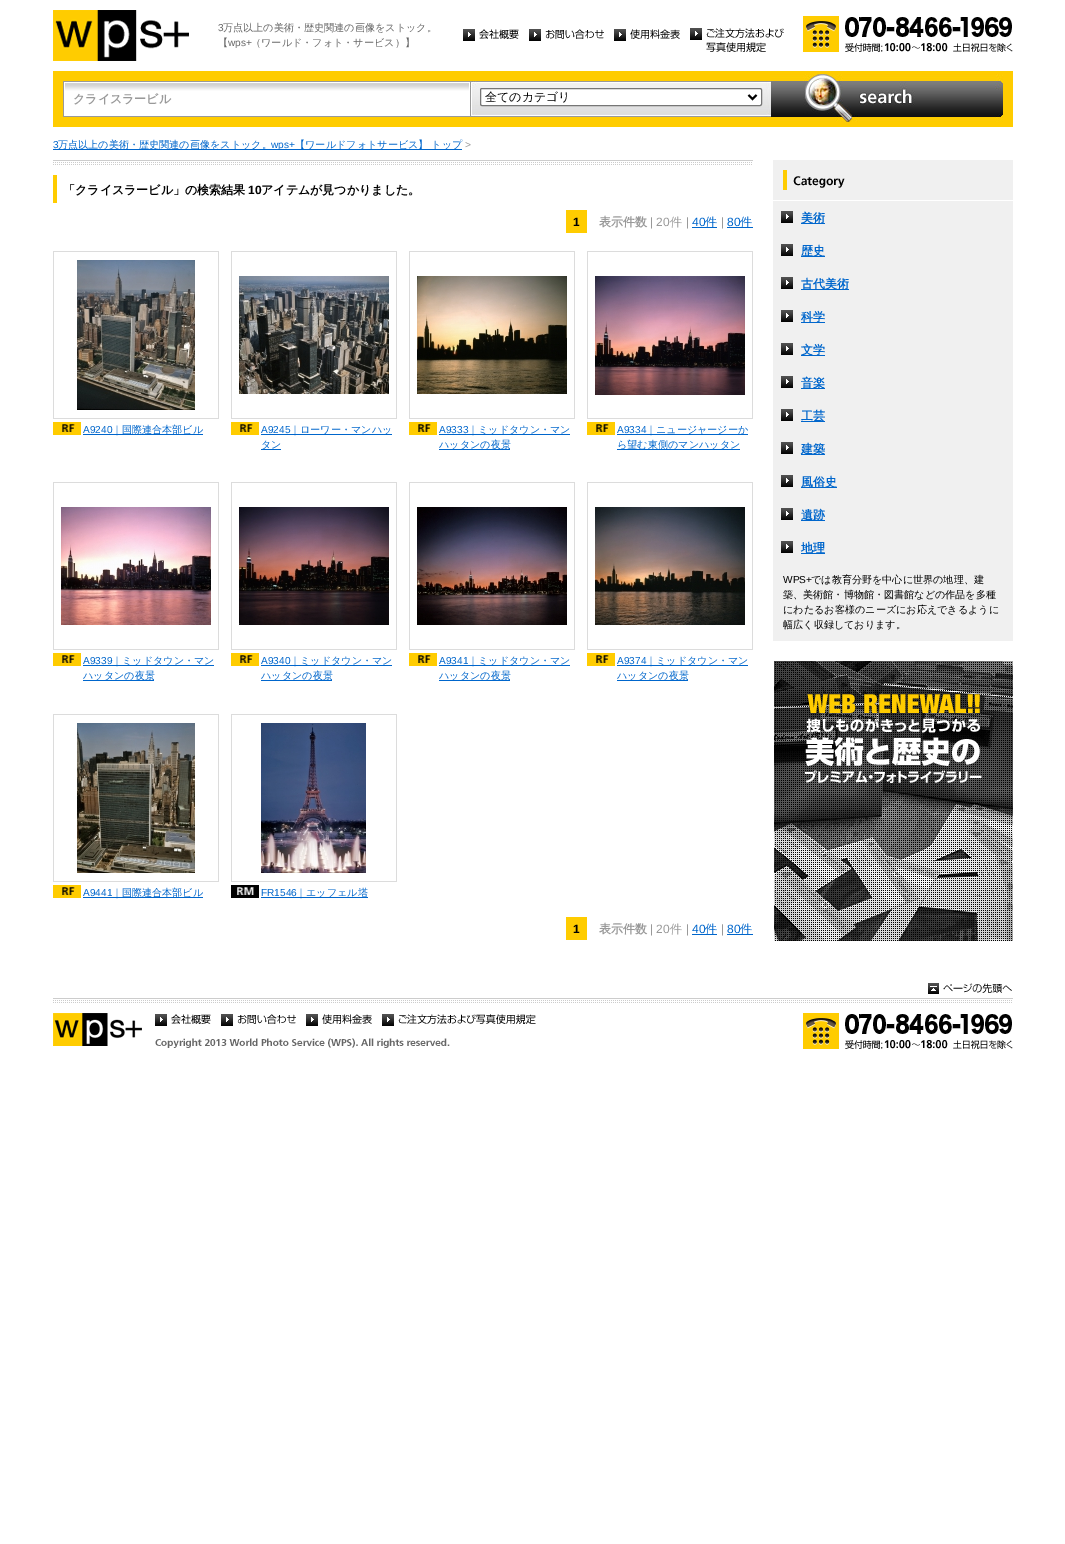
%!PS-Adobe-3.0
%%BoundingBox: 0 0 1065 1544
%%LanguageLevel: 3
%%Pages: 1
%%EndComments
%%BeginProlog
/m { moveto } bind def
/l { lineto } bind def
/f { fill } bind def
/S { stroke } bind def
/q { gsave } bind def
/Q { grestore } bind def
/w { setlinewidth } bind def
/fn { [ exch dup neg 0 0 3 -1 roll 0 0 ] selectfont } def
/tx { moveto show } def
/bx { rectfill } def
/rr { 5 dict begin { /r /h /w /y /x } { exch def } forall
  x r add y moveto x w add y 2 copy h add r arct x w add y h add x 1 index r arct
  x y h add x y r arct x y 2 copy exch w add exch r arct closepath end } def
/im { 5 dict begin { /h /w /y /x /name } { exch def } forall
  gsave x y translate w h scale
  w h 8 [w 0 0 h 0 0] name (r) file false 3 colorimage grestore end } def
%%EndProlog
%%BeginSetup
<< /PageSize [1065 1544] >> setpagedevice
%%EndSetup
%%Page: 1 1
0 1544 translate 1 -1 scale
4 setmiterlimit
1 setgray
0 0 1065 1544 bx
(image0.raw) 53 10 136 51 im
/LiberationSans-Regular 10.1 fn
0.4 setgray
(3) 218 31 tx
/WenQuanYiZenHei-Medium 10.1 fn
(万点以上の美術・歴史関連の画像をストック。) 223 31 tx
(【) 218 46 tx
/LiberationSans-Regular 10.1 fn
(wps+) 228 46 tx
/WenQuanYiZenHei-Medium 10.1 fn
(（ワールド・フォト・サービス）】) 251 46 tx
(image1.raw) 463 29 56 12 im
(image2.raw) 529 29 75 12 im
(image3.raw) 614 29 66 12 im
(image4.raw) 690 28 94 24 im
(image5.raw) 803 16 210 36 im
1 0.8 0 setrgbcolor
53 71 960 56 bx
(image6.raw) 63 81 407 36 im
/WenQuanYiZenHei-Bold 12 fn
0.6 setgray
(クライスラービル) 73 103 tx
(image7.raw) 470 81 301 36 im
1 setgray
480.5 88.5 281 17 1.5 rr q f Q
0.463 setgray
S
0 setgray
2 w
748.5 95 m 752.5 99 l 756.5 95 l S
/WenQuanYiZenHei-Medium 12 fn
(全てのカテゴリ) 485 101 tx
(image8.raw) 771 74 232 48 im
/LiberationSans-Regular 10.1 fn
0 0.4 0.8 setrgbcolor
(3) 53 148 tx
53 149 409 1 bx
/WenQuanYiZenHei-Medium 10.1 fn
(万点以上の美術・歴史関連の画像をストック。) 58 148 tx
/LiberationSans-Regular 10.1 fn
(wps+) 271 148 tx
/WenQuanYiZenHei-Medium 10.1 fn
(【ワールドフォトサービス】 トップ) 295 148 tx
/LiberationSans-Regular 10.1 fn
0.6 setgray
(>) 465 148 tx
(image9.raw) 53 160 700 5 im
1 0.8 0 setrgbcolor
53 175 4 28 bx
/WenQuanYiZenHei-Bold 12 fn
0 setgray
(「クライスラービル」の検索結果) 63 194 tx
/LiberationSans-Bold 12 fn
(10) 248 194 tx
/WenQuanYiZenHei-Bold 12 fn
(アイテムが見つかりました。) 261 194 tx
1 0.8 0 setrgbcolor
566 210 21 23 bx
/LiberationSans-Bold 12 fn
0 setgray
(1) 573 226 tx
/WenQuanYiZenHei-Bold 12 fn
0.6 setgray
(表示件数) 599 226 tx
/LiberationSans-Regular 12 fn
(| 20) 650 226 tx
/WenQuanYiZenHei-Medium 12 fn
(件) 670 226 tx
/LiberationSans-Regular 12 fn
(|) 686 226 tx
0 0.4 0.8 setrgbcolor
(40) 692 226 tx
692 227 25 1 bx
/WenQuanYiZenHei-Medium 12 fn
(件) 705 226 tx
/LiberationSans-Regular 12 fn
0.6 setgray
(|) 721 226 tx
0 0.4 0.8 setrgbcolor
(80) 727 226 tx
727 227 26 1 bx
/WenQuanYiZenHei-Medium 12 fn
(件) 740 226 tx
0.863 setgray
53 251 166 1 bx
218 251 1 168 bx
53 418 166 1 bx
53 251 1 168 bx
(image10.raw) 77 260 118 150 im
(image11.raw) 53 422 28 13 im
/LiberationSans-Regular 10.1 fn
0 0.4 0.8 setrgbcolor
(A9240) 83 433 tx
83 434 120 1 bx
/WenQuanYiZenHei-Medium 10.1 fn
(｜国際連合本部ビル) 112 433 tx
0.863 setgray
231 251 166 1 bx
396 251 1 168 bx
231 418 166 1 bx
231 251 1 168 bx
(image12.raw) 239 276 150 118 im
(image11.raw) 231 422 28 13 im
/LiberationSans-Regular 10.1 fn
0 0.4 0.8 setrgbcolor
(A9245) 261 433 tx
261 434 131 1 bx
/WenQuanYiZenHei-Medium 10.1 fn
(｜ローワー・マンハッ) 290 433 tx
261 449 20 1 bx
(タン) 261 448 tx
0.863 setgray
409 251 166 1 bx
574 251 1 168 bx
409 418 166 1 bx
409 251 1 168 bx
(image13.raw) 417 276 150 118 im
(image14.raw) 409 422 28 13 im
/LiberationSans-Regular 10.1 fn
0 0.4 0.8 setrgbcolor
(A9333) 439 433 tx
439 434 131 1 bx
/WenQuanYiZenHei-Medium 10.1 fn
(｜ミッドタウン・マン) 468 433 tx
439 449 71 1 bx
(ハッタンの夜景) 439 448 tx
0.863 setgray
587 251 166 1 bx
752 251 1 168 bx
587 418 166 1 bx
587 251 1 168 bx
(image15.raw) 595 276 150 119 im
(image14.raw) 587 422 28 13 im
/LiberationSans-Regular 10.1 fn
0 0.4 0.8 setrgbcolor
(A9334) 617 433 tx
617 434 131 1 bx
/WenQuanYiZenHei-Medium 10.1 fn
(｜ニュージャージーか) 646 433 tx
617 449 123 1 bx
(ら望む東側のマンハッタン) 617 448 tx
0.863 setgray
53 482 166 1 bx
218 482 1 168 bx
53 649 166 1 bx
53 482 1 168 bx
(image16.raw) 61 507 150 118 im
(image11.raw) 53 653 28 13 im
/LiberationSans-Regular 10.1 fn
0 0.4 0.8 setrgbcolor
(A9339) 83 664 tx
83 665 131 1 bx
/WenQuanYiZenHei-Medium 10.1 fn
(｜ミッドタウン・マン) 112 664 tx
83 680 71 1 bx
(ハッタンの夜景) 83 679 tx
0.863 setgray
231 482 166 1 bx
396 482 1 168 bx
231 649 166 1 bx
231 482 1 168 bx
(image17.raw) 239 507 150 118 im
(image11.raw) 231 653 28 13 im
/LiberationSans-Regular 10.1 fn
0 0.4 0.8 setrgbcolor
(A9340) 261 664 tx
261 665 131 1 bx
/WenQuanYiZenHei-Medium 10.1 fn
(｜ミッドタウン・マン) 290 664 tx
261 680 71 1 bx
(ハッタンの夜景) 261 679 tx
0.863 setgray
409 482 166 1 bx
574 482 1 168 bx
409 649 166 1 bx
409 482 1 168 bx
(image18.raw) 417 507 150 118 im
(image14.raw) 409 653 28 13 im
/LiberationSans-Regular 10.1 fn
0 0.4 0.8 setrgbcolor
(A9341) 439 664 tx
439 665 131 1 bx
/WenQuanYiZenHei-Medium 10.1 fn
(｜ミッドタウン・マン) 468 664 tx
439 680 71 1 bx
(ハッタンの夜景) 439 679 tx
0.863 setgray
587 482 166 1 bx
752 482 1 168 bx
587 649 166 1 bx
587 482 1 168 bx
(image19.raw) 595 507 150 118 im
(image14.raw) 587 653 28 13 im
/LiberationSans-Regular 10.1 fn
0 0.4 0.8 setrgbcolor
(A9374) 617 664 tx
617 665 131 1 bx
/WenQuanYiZenHei-Medium 10.1 fn
(｜ミッドタウン・マン) 646 664 tx
617 680 71 1 bx
(ハッタンの夜景) 617 679 tx
0.863 setgray
53 714 166 1 bx
218 714 1 168 bx
53 881 166 1 bx
53 714 1 168 bx
(image20.raw) 77 723 118 150 im
(image11.raw) 53 885 28 13 im
/LiberationSans-Regular 10.1 fn
0 0.4 0.8 setrgbcolor
(A9441) 83 896 tx
83 897 120 1 bx
/WenQuanYiZenHei-Medium 10.1 fn
(｜国際連合本部ビル) 112 896 tx
0.863 setgray
231 714 166 1 bx
396 714 1 168 bx
231 881 166 1 bx
231 714 1 168 bx
(image21.raw) 261 723 105 150 im
(image22.raw) 231 885 28 13 im
/LiberationSans-Regular 10.1 fn
0 0.4 0.8 setrgbcolor
(FR1546) 261 896 tx
261 897 107 1 bx
/WenQuanYiZenHei-Medium 10.1 fn
(｜エッフェル塔) 296 896 tx
1 0.8 0 setrgbcolor
566 917 21 23 bx
/LiberationSans-Bold 12 fn
0 setgray
(1) 573 933 tx
/WenQuanYiZenHei-Bold 12 fn
0.6 setgray
(表示件数) 599 933 tx
/LiberationSans-Regular 12 fn
(| 20) 650 933 tx
/WenQuanYiZenHei-Medium 12 fn
(件) 670 933 tx
/LiberationSans-Regular 12 fn
(|) 686 933 tx
0 0.4 0.8 setrgbcolor
(40) 692 933 tx
692 934 25 1 bx
/WenQuanYiZenHei-Medium 12 fn
(件) 705 933 tx
/LiberationSans-Regular 12 fn
0.6 setgray
(|) 721 933 tx
0 0.4 0.8 setrgbcolor
(80) 727 933 tx
727 934 26 1 bx
/WenQuanYiZenHei-Medium 12 fn
(件) 740 933 tx
(image23.raw) 773 160 240 40 im
0.941 setgray
773 201 240 440 bx
(image24.raw) 781 211 12 12 im
0 0.4 0.8 setrgbcolor
801 223 24 1 bx
/WenQuanYiZenHei-Bold 12 fn
(美術) 801 222 tx
(image24.raw) 781 244 12 12 im
801 256 24 1 bx
(歴史) 801 255 tx
(image24.raw) 781 277 12 12 im
801 289 48 1 bx
(古代美術) 801 288 tx
(image24.raw) 781 310 12 12 im
801 322 24 1 bx
(科学) 801 321 tx
(image24.raw) 781 343 12 12 im
801 355 24 1 bx
(文学) 801 354 tx
(image24.raw) 781 376 12 12 im
801 388 24 1 bx
(音楽) 801 387 tx
(image24.raw) 781 409 12 12 im
801 421 24 1 bx
(工芸) 801 420 tx
(image24.raw) 781 442 12 12 im
801 454 24 1 bx
(建築) 801 453 tx
(image24.raw) 781 475 12 12 im
801 487 36 1 bx
(風俗史) 801 486 tx
(image24.raw) 781 508 12 12 im
801 520 24 1 bx
(遺跡) 801 519 tx
(image24.raw) 781 541 12 12 im
801 553 24 1 bx
(地理) 801 552 tx
/LiberationSans-Regular 10.1 fn
0 setgray
(WPS+) 783 583 tx
/WenQuanYiZenHei-Medium 10.1 fn
(では教育分野を中心に世界の地理、建) 811 583 tx
(築、美術館・博物館・図書館などの作品を多種) 783 598 tx
(にわたるお客様のニーズにお応えできるように) 783 613 tx
(幅広く収録しております。) 783 628 tx
(image25.raw) 774 661 239 280 im
(image26.raw) 53 998 960 5 im
(image27.raw) 928 983 84 11 im
(image28.raw) 53 1013 89 33 im
(image1.raw) 155 1014 56 12 im
(image2.raw) 221 1014 75 12 im
(image3.raw) 306 1014 66 12 im
(image29.raw) 382 1014 154 12 im
(image5.raw) 803 1013 210 36 im
(image30.raw) 155 1038 295 10 im
showpage
%%EOF
